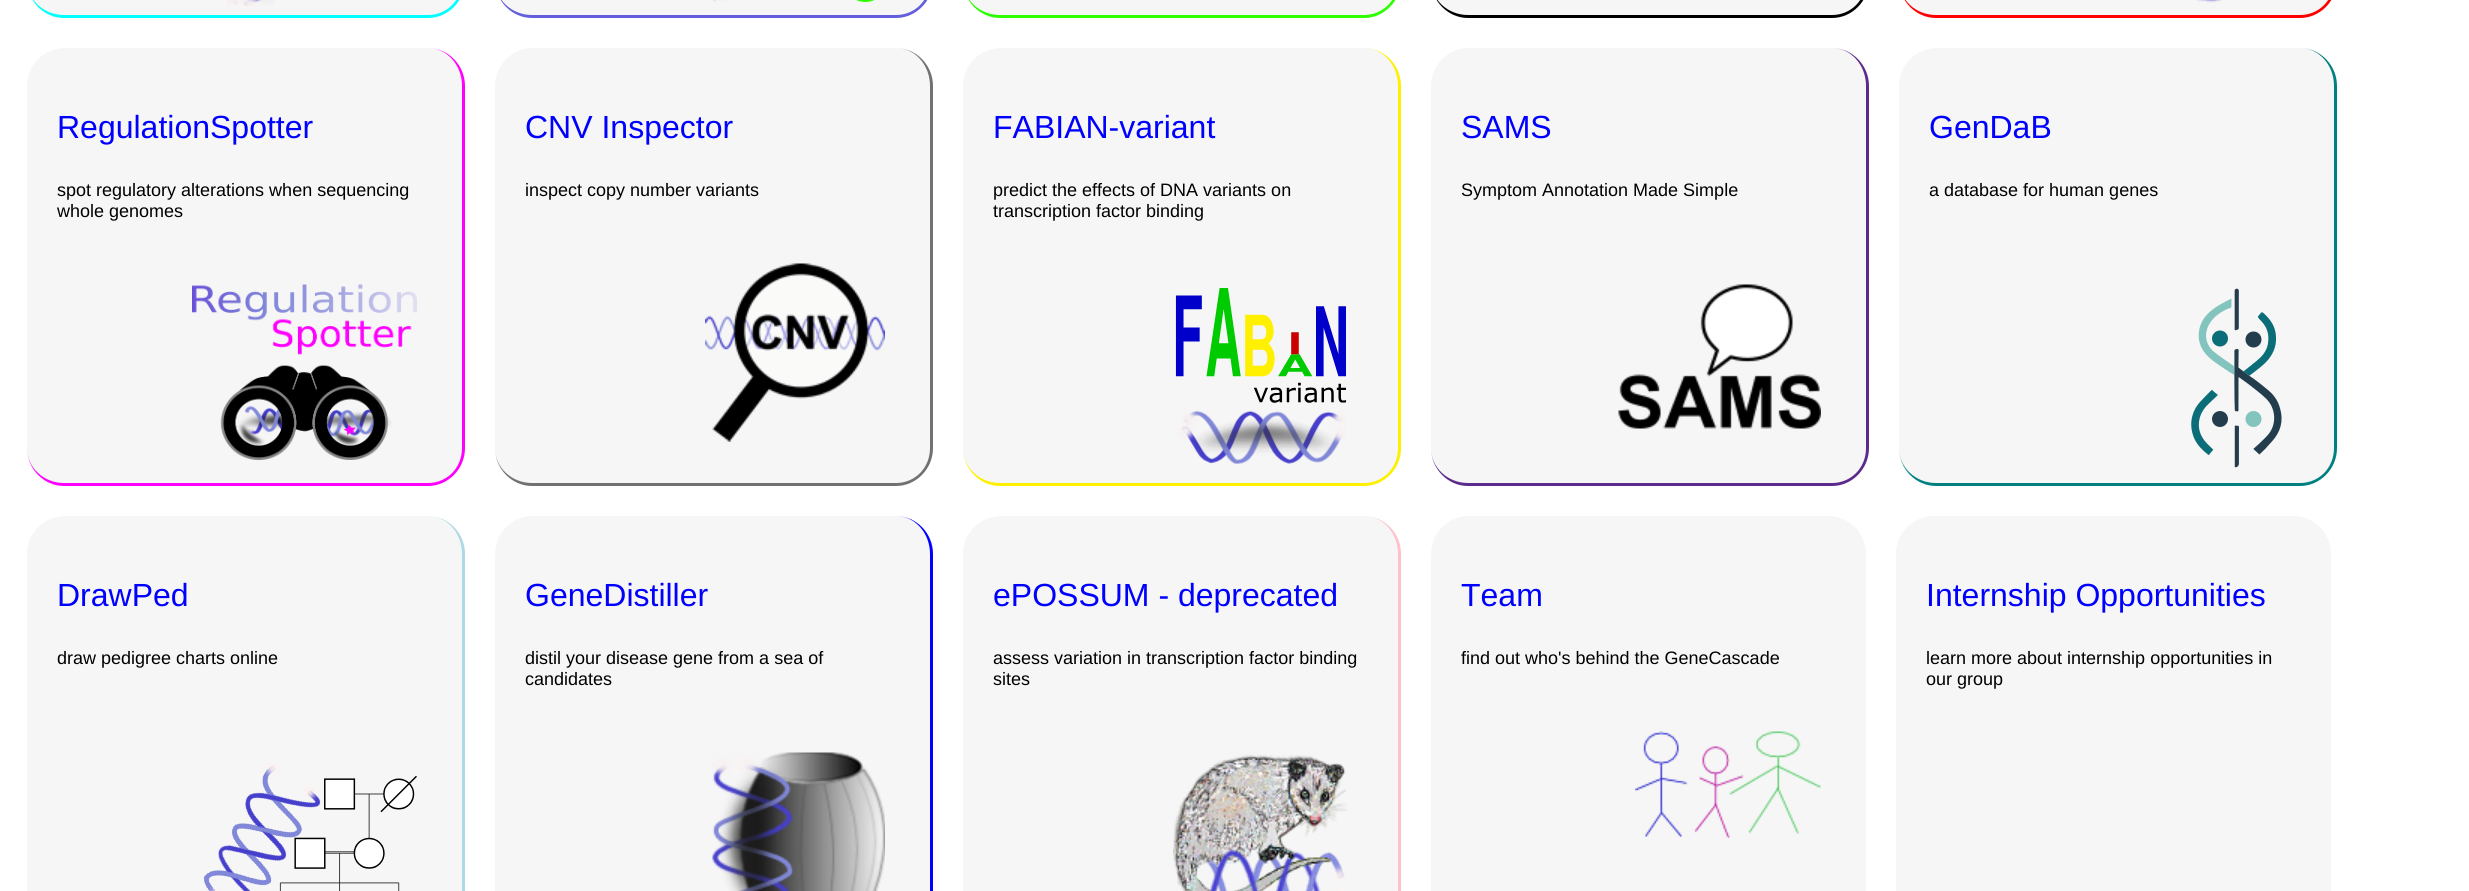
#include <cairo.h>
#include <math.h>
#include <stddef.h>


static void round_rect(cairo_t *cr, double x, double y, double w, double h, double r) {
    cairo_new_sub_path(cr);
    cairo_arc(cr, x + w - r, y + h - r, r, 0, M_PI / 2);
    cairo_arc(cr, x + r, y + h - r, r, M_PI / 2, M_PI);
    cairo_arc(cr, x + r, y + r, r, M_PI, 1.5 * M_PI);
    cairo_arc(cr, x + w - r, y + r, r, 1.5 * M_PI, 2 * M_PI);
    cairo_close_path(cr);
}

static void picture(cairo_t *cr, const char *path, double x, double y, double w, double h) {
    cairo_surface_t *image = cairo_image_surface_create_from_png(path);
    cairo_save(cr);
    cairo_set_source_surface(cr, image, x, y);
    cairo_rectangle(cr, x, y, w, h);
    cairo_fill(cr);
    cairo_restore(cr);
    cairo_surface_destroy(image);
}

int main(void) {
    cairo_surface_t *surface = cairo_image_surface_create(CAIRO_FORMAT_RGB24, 2469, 891);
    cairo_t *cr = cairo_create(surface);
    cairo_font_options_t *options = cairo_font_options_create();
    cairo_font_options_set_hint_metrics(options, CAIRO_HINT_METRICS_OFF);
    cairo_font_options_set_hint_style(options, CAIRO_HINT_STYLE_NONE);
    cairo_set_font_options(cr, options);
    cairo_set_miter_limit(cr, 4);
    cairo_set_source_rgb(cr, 1, 1, 1);
    cairo_paint(cr);
    cairo_set_source_rgb(cr, 0.961, 0.961, 0.961);
    round_rect(cr, 27, -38, 438, 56, 38);
    cairo_fill(cr);
    cairo_set_source_rgb(cr, 0, 1, 1);
    cairo_set_fill_rule(cr, CAIRO_FILL_RULE_EVEN_ODD);
    cairo_new_path(cr);
    cairo_move_to(cr, 64, -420);
    cairo_line_to(cr, 428, -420);
    cairo_curve_to(cr, 448, -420, 465, -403, 465, -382);
    cairo_line_to(cr, 465, -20);
    cairo_curve_to(cr, 465, 1, 448, 18, 428, 18);
    cairo_line_to(cr, 64, 18);
    cairo_curve_to(cr, 44, 18, 27, 1, 27, -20);
    cairo_line_to(cr, 27, -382);
    cairo_curve_to(cr, 27, -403, 44, -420, 64, -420);
    cairo_close_path(cr);
    cairo_move_to(cr, 64, -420);
    cairo_line_to(cr, 428, -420);
    cairo_curve_to(cr, 447, -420, 462, -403, 462, -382);
    cairo_line_to(cr, 462, -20);
    cairo_curve_to(cr, 462, 0, 447, 15, 428, 15);
    cairo_line_to(cr, 64, 15);
    cairo_curve_to(cr, 44, 15, 27, 0, 27, -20);
    cairo_line_to(cr, 27, -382);
    cairo_curve_to(cr, 27, -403, 44, -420, 64, -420);
    cairo_close_path(cr);
    cairo_fill(cr);
    picture(cr, "img1.png", 226, 0, 49, 7);
    cairo_set_source_rgb(cr, 0.961, 0.961, 0.961);
    round_rect(cr, 495, -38, 438, 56, 38);
    cairo_fill(cr);
    cairo_set_source_rgb(cr, 0.388, 0.373, 0.863);
    cairo_new_path(cr);
    cairo_move_to(cr, 532, -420);
    cairo_line_to(cr, 896, -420);
    cairo_curve_to(cr, 916, -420, 933, -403, 933, -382);
    cairo_line_to(cr, 933, -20);
    cairo_curve_to(cr, 933, 1, 916, 18, 896, 18);
    cairo_line_to(cr, 532, 18);
    cairo_curve_to(cr, 512, 18, 495, 1, 495, -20);
    cairo_line_to(cr, 495, -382);
    cairo_curve_to(cr, 495, -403, 512, -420, 532, -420);
    cairo_close_path(cr);
    cairo_move_to(cr, 532, -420);
    cairo_line_to(cr, 896, -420);
    cairo_curve_to(cr, 915, -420, 930, -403, 930, -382);
    cairo_line_to(cr, 930, -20);
    cairo_curve_to(cr, 930, 0, 915, 15, 896, 15);
    cairo_line_to(cr, 532, 15);
    cairo_curve_to(cr, 512, 15, 495, 0, 495, -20);
    cairo_line_to(cr, 495, -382);
    cairo_curve_to(cr, 495, -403, 512, -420, 532, -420);
    cairo_close_path(cr);
    cairo_fill(cr);
    picture(cr, "img2.png", 713, 0, 161, 2);
    cairo_set_source_rgb(cr, 0.961, 0.961, 0.961);
    round_rect(cr, 963, -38, 438, 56, 38);
    cairo_fill(cr);
    cairo_set_source_rgb(cr, 0.176, 1, 0);
    cairo_new_path(cr);
    cairo_move_to(cr, 1000, -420);
    cairo_line_to(cr, 1364, -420);
    cairo_curve_to(cr, 1384, -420, 1401, -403, 1401, -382);
    cairo_line_to(cr, 1401, -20);
    cairo_curve_to(cr, 1401, 1, 1384, 18, 1364, 18);
    cairo_line_to(cr, 1000, 18);
    cairo_curve_to(cr, 980, 18, 963, 1, 963, -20);
    cairo_line_to(cr, 963, -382);
    cairo_curve_to(cr, 963, -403, 980, -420, 1000, -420);
    cairo_close_path(cr);
    cairo_move_to(cr, 1000, -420);
    cairo_line_to(cr, 1364, -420);
    cairo_curve_to(cr, 1383, -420, 1398, -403, 1398, -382);
    cairo_line_to(cr, 1398, -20);
    cairo_curve_to(cr, 1398, 0, 1383, 15, 1364, 15);
    cairo_line_to(cr, 1000, 15);
    cairo_curve_to(cr, 980, 15, 963, 0, 963, -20);
    cairo_line_to(cr, 963, -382);
    cairo_curve_to(cr, 963, -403, 980, -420, 1000, -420);
    cairo_close_path(cr);
    cairo_fill(cr);
    cairo_set_source_rgb(cr, 0.961, 0.961, 0.961);
    round_rect(cr, 1431, -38, 438, 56, 38);
    cairo_fill(cr);
    cairo_set_source_rgb(cr, 0, 0, 0);
    cairo_new_path(cr);
    cairo_move_to(cr, 1468, -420);
    cairo_line_to(cr, 1832, -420);
    cairo_curve_to(cr, 1852, -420, 1869, -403, 1869, -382);
    cairo_line_to(cr, 1869, -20);
    cairo_curve_to(cr, 1869, 1, 1852, 18, 1832, 18);
    cairo_line_to(cr, 1468, 18);
    cairo_curve_to(cr, 1448, 18, 1431, 1, 1431, -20);
    cairo_line_to(cr, 1431, -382);
    cairo_curve_to(cr, 1431, -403, 1448, -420, 1468, -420);
    cairo_close_path(cr);
    cairo_move_to(cr, 1468, -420);
    cairo_line_to(cr, 1832, -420);
    cairo_curve_to(cr, 1851, -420, 1866, -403, 1866, -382);
    cairo_line_to(cr, 1866, -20);
    cairo_curve_to(cr, 1866, 0, 1851, 15, 1832, 15);
    cairo_line_to(cr, 1468, 15);
    cairo_curve_to(cr, 1448, 15, 1431, 0, 1431, -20);
    cairo_line_to(cr, 1431, -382);
    cairo_curve_to(cr, 1431, -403, 1448, -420, 1468, -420);
    cairo_close_path(cr);
    cairo_fill(cr);
    cairo_set_source_rgb(cr, 0.961, 0.961, 0.961);
    round_rect(cr, 1899, -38, 438, 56, 38);
    cairo_fill(cr);
    cairo_set_source_rgb(cr, 1, 0, 0);
    cairo_new_path(cr);
    cairo_move_to(cr, 1936, -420);
    cairo_line_to(cr, 2300, -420);
    cairo_curve_to(cr, 2320, -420, 2337, -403, 2337, -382);
    cairo_line_to(cr, 2337, -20);
    cairo_curve_to(cr, 2337, 1, 2320, 18, 2300, 18);
    cairo_line_to(cr, 1936, 18);
    cairo_curve_to(cr, 1916, 18, 1899, 1, 1899, -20);
    cairo_line_to(cr, 1899, -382);
    cairo_curve_to(cr, 1899, -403, 1916, -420, 1936, -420);
    cairo_close_path(cr);
    cairo_move_to(cr, 1936, -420);
    cairo_line_to(cr, 2300, -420);
    cairo_curve_to(cr, 2319, -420, 2334, -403, 2334, -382);
    cairo_line_to(cr, 2334, -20);
    cairo_curve_to(cr, 2334, 0, 2319, 15, 2300, 15);
    cairo_line_to(cr, 1936, 15);
    cairo_curve_to(cr, 1916, 15, 1899, 0, 1899, -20);
    cairo_line_to(cr, 1899, -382);
    cairo_curve_to(cr, 1899, -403, 1916, -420, 1936, -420);
    cairo_close_path(cr);
    cairo_fill(cr);
    picture(cr, "img3.png", 2196, 0, 26, 3);
    cairo_set_source_rgb(cr, 0.961, 0.961, 0.961);
    round_rect(cr, 27, 48, 438, 438, 38);
    cairo_fill(cr);
    cairo_set_source_rgb(cr, 1, 0, 1);
    cairo_new_path(cr);
    cairo_move_to(cr, 64, 48);
    cairo_line_to(cr, 428, 48);
    cairo_curve_to(cr, 448, 48, 465, 65, 465, 86);
    cairo_line_to(cr, 465, 448);
    cairo_curve_to(cr, 465, 469, 448, 486, 428, 486);
    cairo_line_to(cr, 64, 486);
    cairo_curve_to(cr, 44, 486, 27, 469, 27, 448);
    cairo_line_to(cr, 27, 86);
    cairo_curve_to(cr, 27, 65, 44, 48, 64, 48);
    cairo_close_path(cr);
    cairo_move_to(cr, 64, 48);
    cairo_line_to(cr, 428, 48);
    cairo_curve_to(cr, 447, 48, 462, 65, 462, 86);
    cairo_line_to(cr, 462, 448);
    cairo_curve_to(cr, 462, 468, 447, 483, 428, 483);
    cairo_line_to(cr, 64, 483);
    cairo_curve_to(cr, 44, 483, 27, 468, 27, 448);
    cairo_line_to(cr, 27, 86);
    cairo_curve_to(cr, 27, 65, 44, 48, 64, 48);
    cairo_close_path(cr);
    cairo_fill(cr);
    cairo_select_font_face(cr, "Liberation Sans", CAIRO_FONT_SLANT_NORMAL, CAIRO_FONT_WEIGHT_NORMAL);
    cairo_set_font_size(cr, 32);
    cairo_set_source_rgb(cr, 0, 0, 1);
    cairo_move_to(cr, 57, 138);
    cairo_show_text(cr, "RegulationSpotter");
    cairo_set_font_size(cr, 18);
    cairo_set_source_rgb(cr, 0, 0, 0);
    cairo_move_to(cr, 57, 196);
    cairo_show_text(cr, "spot regulatory alterations when sequencing");
    cairo_move_to(cr, 57, 217);
    cairo_show_text(cr, "whole genomes");
    picture(cr, "img4.png", 192, 284, 225, 176);
    cairo_set_source_rgb(cr, 0.961, 0.961, 0.961);
    round_rect(cr, 495, 48, 438, 438, 38);
    cairo_fill(cr);
    cairo_set_source_rgb(cr, 0.439, 0.443, 0.451);
    cairo_new_path(cr);
    cairo_move_to(cr, 532, 48);
    cairo_line_to(cr, 896, 48);
    cairo_curve_to(cr, 916, 48, 933, 65, 933, 86);
    cairo_line_to(cr, 933, 448);
    cairo_curve_to(cr, 933, 469, 916, 486, 896, 486);
    cairo_line_to(cr, 532, 486);
    cairo_curve_to(cr, 512, 486, 495, 469, 495, 448);
    cairo_line_to(cr, 495, 86);
    cairo_curve_to(cr, 495, 65, 512, 48, 532, 48);
    cairo_close_path(cr);
    cairo_move_to(cr, 532, 48);
    cairo_line_to(cr, 896, 48);
    cairo_curve_to(cr, 915, 48, 930, 65, 930, 86);
    cairo_line_to(cr, 930, 448);
    cairo_curve_to(cr, 930, 468, 915, 483, 896, 483);
    cairo_line_to(cr, 532, 483);
    cairo_curve_to(cr, 512, 483, 495, 468, 495, 448);
    cairo_line_to(cr, 495, 86);
    cairo_curve_to(cr, 495, 65, 512, 48, 532, 48);
    cairo_close_path(cr);
    cairo_fill(cr);
    cairo_set_font_size(cr, 32);
    cairo_set_source_rgb(cr, 0, 0, 1);
    cairo_move_to(cr, 525, 138);
    cairo_show_text(cr, "CNV Inspector");
    cairo_set_font_size(cr, 18);
    cairo_set_source_rgb(cr, 0, 0, 0);
    cairo_move_to(cr, 525, 196);
    cairo_show_text(cr, "inspect copy number variants");
    picture(cr, "img5.png", 705, 263, 180, 179);
    cairo_set_source_rgb(cr, 0.961, 0.961, 0.961);
    round_rect(cr, 963, 48, 438, 438, 38);
    cairo_fill(cr);
    cairo_set_source_rgb(cr, 1, 0.941, 0);
    cairo_new_path(cr);
    cairo_move_to(cr, 1000, 48);
    cairo_line_to(cr, 1364, 48);
    cairo_curve_to(cr, 1384, 48, 1401, 65, 1401, 86);
    cairo_line_to(cr, 1401, 448);
    cairo_curve_to(cr, 1401, 469, 1384, 486, 1364, 486);
    cairo_line_to(cr, 1000, 486);
    cairo_curve_to(cr, 980, 486, 963, 469, 963, 448);
    cairo_line_to(cr, 963, 86);
    cairo_curve_to(cr, 963, 65, 980, 48, 1000, 48);
    cairo_close_path(cr);
    cairo_move_to(cr, 1000, 48);
    cairo_line_to(cr, 1364, 48);
    cairo_curve_to(cr, 1383, 48, 1398, 65, 1398, 86);
    cairo_line_to(cr, 1398, 448);
    cairo_curve_to(cr, 1398, 468, 1383, 483, 1364, 483);
    cairo_line_to(cr, 1000, 483);
    cairo_curve_to(cr, 980, 483, 963, 468, 963, 448);
    cairo_line_to(cr, 963, 86);
    cairo_curve_to(cr, 963, 65, 980, 48, 1000, 48);
    cairo_close_path(cr);
    cairo_fill(cr);
    cairo_set_font_size(cr, 32);
    cairo_set_source_rgb(cr, 0, 0, 1);
    cairo_move_to(cr, 993, 138);
    cairo_show_text(cr, "FABIAN-variant");
    cairo_set_font_size(cr, 18);
    cairo_set_source_rgb(cr, 0, 0, 0);
    cairo_move_to(cr, 993, 196);
    cairo_show_text(cr, "predict the effects of DNA variants on");
    cairo_move_to(cr, 993, 217);
    cairo_show_text(cr, "transcription factor binding");
    picture(cr, "img6.png", 1175, 288, 171, 176);
    cairo_set_source_rgb(cr, 0.961, 0.961, 0.961);
    round_rect(cr, 1431, 48, 438, 438, 38);
    cairo_fill(cr);
    cairo_set_source_rgb(cr, 0.357, 0.165, 0.549);
    cairo_new_path(cr);
    cairo_move_to(cr, 1468, 48);
    cairo_line_to(cr, 1832, 48);
    cairo_curve_to(cr, 1852, 48, 1869, 65, 1869, 86);
    cairo_line_to(cr, 1869, 448);
    cairo_curve_to(cr, 1869, 469, 1852, 486, 1832, 486);
    cairo_line_to(cr, 1468, 486);
    cairo_curve_to(cr, 1448, 486, 1431, 469, 1431, 448);
    cairo_line_to(cr, 1431, 86);
    cairo_curve_to(cr, 1431, 65, 1448, 48, 1468, 48);
    cairo_close_path(cr);
    cairo_move_to(cr, 1468, 48);
    cairo_line_to(cr, 1832, 48);
    cairo_curve_to(cr, 1851, 48, 1866, 65, 1866, 86);
    cairo_line_to(cr, 1866, 448);
    cairo_curve_to(cr, 1866, 468, 1851, 483, 1832, 483);
    cairo_line_to(cr, 1468, 483);
    cairo_curve_to(cr, 1448, 483, 1431, 468, 1431, 448);
    cairo_line_to(cr, 1431, 86);
    cairo_curve_to(cr, 1431, 65, 1448, 48, 1468, 48);
    cairo_close_path(cr);
    cairo_fill(cr);
    cairo_set_font_size(cr, 32);
    cairo_set_source_rgb(cr, 0, 0, 1);
    cairo_move_to(cr, 1461, 138);
    cairo_show_text(cr, "SAMS");
    cairo_set_font_size(cr, 18);
    cairo_set_source_rgb(cr, 0, 0, 0);
    cairo_move_to(cr, 1461, 196);
    cairo_show_text(cr, "Symptom Annotation Made Simple");
    picture(cr, "img7.png", 1618, 284, 203, 145);
    cairo_set_source_rgb(cr, 0.961, 0.961, 0.961);
    round_rect(cr, 1899, 48, 438, 438, 38);
    cairo_fill(cr);
    cairo_set_source_rgb(cr, 0, 0.502, 0.502);
    cairo_new_path(cr);
    cairo_move_to(cr, 1936, 48);
    cairo_line_to(cr, 2300, 48);
    cairo_curve_to(cr, 2320, 48, 2337, 65, 2337, 86);
    cairo_line_to(cr, 2337, 448);
    cairo_curve_to(cr, 2337, 469, 2320, 486, 2300, 486);
    cairo_line_to(cr, 1936, 486);
    cairo_curve_to(cr, 1916, 486, 1899, 469, 1899, 448);
    cairo_line_to(cr, 1899, 86);
    cairo_curve_to(cr, 1899, 65, 1916, 48, 1936, 48);
    cairo_close_path(cr);
    cairo_move_to(cr, 1936, 48);
    cairo_line_to(cr, 2300, 48);
    cairo_curve_to(cr, 2319, 48, 2334, 65, 2334, 86);
    cairo_line_to(cr, 2334, 448);
    cairo_curve_to(cr, 2334, 468, 2319, 483, 2300, 483);
    cairo_line_to(cr, 1936, 483);
    cairo_curve_to(cr, 1916, 483, 1899, 468, 1899, 448);
    cairo_line_to(cr, 1899, 86);
    cairo_curve_to(cr, 1899, 65, 1916, 48, 1936, 48);
    cairo_close_path(cr);
    cairo_fill(cr);
    cairo_set_font_size(cr, 32);
    cairo_set_source_rgb(cr, 0, 0, 1);
    cairo_move_to(cr, 1929, 138);
    cairo_show_text(cr, "GenDaB");
    cairo_set_font_size(cr, 18);
    cairo_set_source_rgb(cr, 0, 0, 0);
    cairo_move_to(cr, 1929, 196);
    cairo_show_text(cr, "a database for human genes");
    picture(cr, "img8.png", 2191, 288, 91, 180);
    cairo_set_source_rgb(cr, 0.961, 0.961, 0.961);
    round_rect(cr, 27, 516, 438, 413, 38);
    cairo_fill(cr);
    cairo_set_source_rgb(cr, 0.678, 0.847, 0.902);
    cairo_new_path(cr);
    cairo_move_to(cr, 64, 516);
    cairo_line_to(cr, 428, 516);
    cairo_curve_to(cr, 448, 516, 465, 533, 465, 554);
    cairo_line_to(cr, 465, 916);
    cairo_curve_to(cr, 465, 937, 448, 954, 428, 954);
    cairo_line_to(cr, 64, 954);
    cairo_curve_to(cr, 44, 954, 27, 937, 27, 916);
    cairo_line_to(cr, 27, 554);
    cairo_curve_to(cr, 27, 533, 44, 516, 64, 516);
    cairo_close_path(cr);
    cairo_move_to(cr, 64, 516);
    cairo_line_to(cr, 428, 516);
    cairo_curve_to(cr, 447, 516, 462, 533, 462, 554);
    cairo_line_to(cr, 462, 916);
    cairo_curve_to(cr, 462, 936, 447, 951, 428, 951);
    cairo_line_to(cr, 64, 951);
    cairo_curve_to(cr, 44, 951, 27, 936, 27, 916);
    cairo_line_to(cr, 27, 554);
    cairo_curve_to(cr, 27, 533, 44, 516, 64, 516);
    cairo_close_path(cr);
    cairo_fill(cr);
    cairo_set_font_size(cr, 32);
    cairo_set_source_rgb(cr, 0, 0, 1);
    cairo_move_to(cr, 57, 606);
    cairo_show_text(cr, "DrawPed");
    cairo_set_font_size(cr, 18);
    cairo_set_source_rgb(cr, 0, 0, 0);
    cairo_move_to(cr, 57, 664);
    cairo_show_text(cr, "draw pedigree charts online");
    picture(cr, "img9.png", 203, 764, 214, 127);
    cairo_set_source_rgb(cr, 0.961, 0.961, 0.961);
    round_rect(cr, 495, 516, 438, 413, 38);
    cairo_fill(cr);
    cairo_set_source_rgb(cr, 0, 0, 1);
    cairo_new_path(cr);
    cairo_move_to(cr, 532, 516);
    cairo_line_to(cr, 896, 516);
    cairo_curve_to(cr, 916, 516, 933, 533, 933, 554);
    cairo_line_to(cr, 933, 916);
    cairo_curve_to(cr, 933, 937, 916, 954, 896, 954);
    cairo_line_to(cr, 532, 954);
    cairo_curve_to(cr, 512, 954, 495, 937, 495, 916);
    cairo_line_to(cr, 495, 554);
    cairo_curve_to(cr, 495, 533, 512, 516, 532, 516);
    cairo_close_path(cr);
    cairo_move_to(cr, 532, 516);
    cairo_line_to(cr, 896, 516);
    cairo_curve_to(cr, 915, 516, 930, 533, 930, 554);
    cairo_line_to(cr, 930, 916);
    cairo_curve_to(cr, 930, 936, 915, 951, 896, 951);
    cairo_line_to(cr, 532, 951);
    cairo_curve_to(cr, 512, 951, 495, 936, 495, 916);
    cairo_line_to(cr, 495, 554);
    cairo_curve_to(cr, 495, 533, 512, 516, 532, 516);
    cairo_close_path(cr);
    cairo_fill(cr);
    cairo_set_font_size(cr, 32);
    cairo_move_to(cr, 525, 606);
    cairo_show_text(cr, "GeneDistiller");
    cairo_set_font_size(cr, 18);
    cairo_set_source_rgb(cr, 0, 0, 0);
    cairo_move_to(cr, 525, 664);
    cairo_show_text(cr, "distil your disease gene from a sea of");
    cairo_move_to(cr, 525, 685);
    cairo_show_text(cr, "candidates");
    picture(cr, "img10.png", 712, 752, 173, 139);
    cairo_set_source_rgb(cr, 0.961, 0.961, 0.961);
    round_rect(cr, 963, 516, 438, 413, 38);
    cairo_fill(cr);
    cairo_set_source_rgb(cr, 1, 0.753, 0.796);
    cairo_new_path(cr);
    cairo_move_to(cr, 1000, 516);
    cairo_line_to(cr, 1364, 516);
    cairo_curve_to(cr, 1384, 516, 1401, 533, 1401, 554);
    cairo_line_to(cr, 1401, 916);
    cairo_curve_to(cr, 1401, 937, 1384, 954, 1364, 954);
    cairo_line_to(cr, 1000, 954);
    cairo_curve_to(cr, 980, 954, 963, 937, 963, 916);
    cairo_line_to(cr, 963, 554);
    cairo_curve_to(cr, 963, 533, 980, 516, 1000, 516);
    cairo_close_path(cr);
    cairo_move_to(cr, 1000, 516);
    cairo_line_to(cr, 1364, 516);
    cairo_curve_to(cr, 1383, 516, 1398, 533, 1398, 554);
    cairo_line_to(cr, 1398, 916);
    cairo_curve_to(cr, 1398, 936, 1383, 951, 1364, 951);
    cairo_line_to(cr, 1000, 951);
    cairo_curve_to(cr, 980, 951, 963, 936, 963, 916);
    cairo_line_to(cr, 963, 554);
    cairo_curve_to(cr, 963, 533, 980, 516, 1000, 516);
    cairo_close_path(cr);
    cairo_fill(cr);
    cairo_set_font_size(cr, 32);
    cairo_set_source_rgb(cr, 0, 0, 1);
    cairo_move_to(cr, 993, 606);
    cairo_show_text(cr, "ePOSSUM - deprecated");
    cairo_set_font_size(cr, 18);
    cairo_set_source_rgb(cr, 0, 0, 0);
    cairo_move_to(cr, 993, 664);
    cairo_show_text(cr, "assess variation in transcription factor binding");
    cairo_move_to(cr, 993, 685);
    cairo_show_text(cr, "sites");
    picture(cr, "img11.png", 1173, 754, 174, 137);
    cairo_set_source_rgb(cr, 0.961, 0.961, 0.961);
    round_rect(cr, 1431, 516, 435, 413, 38);
    cairo_fill(cr);
    cairo_set_font_size(cr, 32);
    cairo_set_source_rgb(cr, 0, 0, 1);
    cairo_move_to(cr, 1461, 606);
    cairo_show_text(cr, "Team");
    cairo_set_font_size(cr, 18);
    cairo_set_source_rgb(cr, 0, 0, 0);
    cairo_move_to(cr, 1461, 664);
    cairo_show_text(cr, "find out who's behind the GeneCascade");
    picture(cr, "img12.png", 1635, 731, 186, 107);
    cairo_set_source_rgb(cr, 0.961, 0.961, 0.961);
    round_rect(cr, 1896, 516, 435, 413, 38);
    cairo_fill(cr);
    cairo_set_font_size(cr, 32);
    cairo_set_source_rgb(cr, 0, 0, 1);
    cairo_move_to(cr, 1926, 606);
    cairo_show_text(cr, "Internship Opportunities");
    cairo_set_font_size(cr, 18);
    cairo_set_source_rgb(cr, 0, 0, 0);
    cairo_move_to(cr, 1926, 664);
    cairo_show_text(cr, "learn more about internship opportunities in");
    cairo_move_to(cr, 1926, 685);
    cairo_show_text(cr, "our group");
    cairo_surface_write_to_png(surface, "page.png");
    cairo_font_options_destroy(options);
    cairo_destroy(cr);
    cairo_surface_destroy(surface);
    return 0;
}
